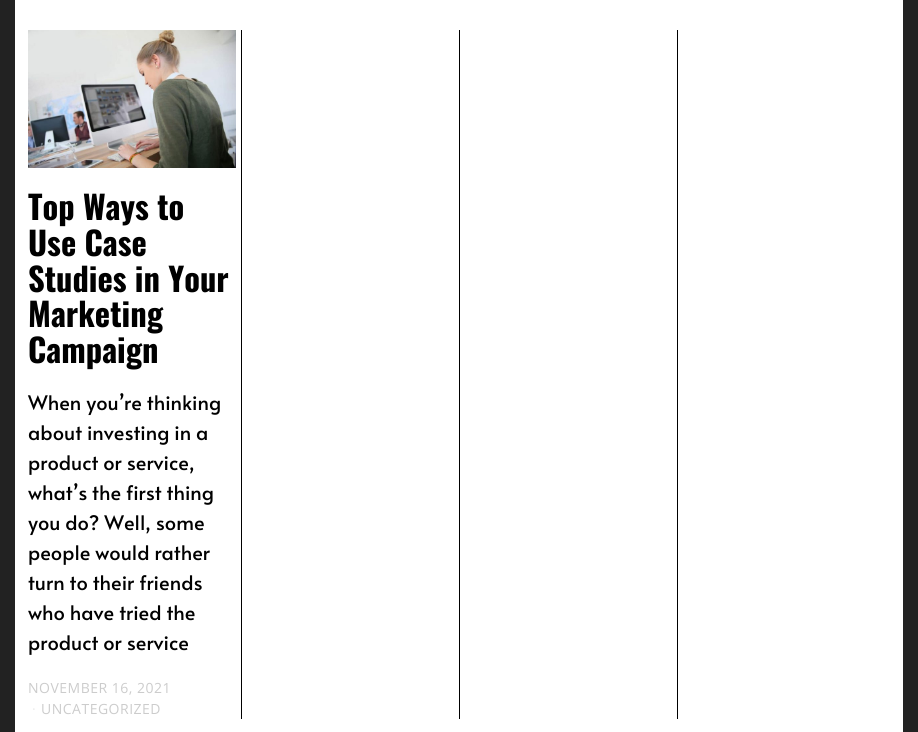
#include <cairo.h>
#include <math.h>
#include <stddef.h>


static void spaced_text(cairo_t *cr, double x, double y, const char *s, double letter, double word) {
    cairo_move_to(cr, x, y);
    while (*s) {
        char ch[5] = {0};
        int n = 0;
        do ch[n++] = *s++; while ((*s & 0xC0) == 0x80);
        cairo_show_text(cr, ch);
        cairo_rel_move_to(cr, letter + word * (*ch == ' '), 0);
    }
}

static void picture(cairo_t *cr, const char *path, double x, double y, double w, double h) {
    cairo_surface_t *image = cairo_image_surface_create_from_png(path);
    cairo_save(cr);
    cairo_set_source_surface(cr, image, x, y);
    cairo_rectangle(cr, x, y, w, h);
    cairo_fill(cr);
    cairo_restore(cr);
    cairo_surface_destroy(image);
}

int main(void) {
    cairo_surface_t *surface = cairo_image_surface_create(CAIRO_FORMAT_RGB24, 918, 732);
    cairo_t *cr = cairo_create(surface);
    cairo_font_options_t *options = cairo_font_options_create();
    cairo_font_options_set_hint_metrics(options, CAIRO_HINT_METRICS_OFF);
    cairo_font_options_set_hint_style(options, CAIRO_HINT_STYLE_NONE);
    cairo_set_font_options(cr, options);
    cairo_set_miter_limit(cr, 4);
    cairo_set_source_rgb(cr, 1, 1, 1);
    cairo_paint(cr);
    cairo_set_source_rgb(cr, 0.133, 0.133, 0.133);
    cairo_rectangle(cr, 903, 0, 15, 732);
    cairo_fill(cr);
    cairo_rectangle(cr, 0, 0, 15, 732);
    cairo_fill(cr);
    picture(cr, "img1.png", 28, 30, 208, 138);
    cairo_select_font_face(cr, "Oswald", CAIRO_FONT_SLANT_NORMAL, CAIRO_FONT_WEIGHT_BOLD);
    cairo_set_font_size(cr, 32.5);
    cairo_set_source_rgb(cr, 0, 0, 0);
    cairo_move_to(cr, 28, 220);
    cairo_show_text(cr, "Top Ways to");
    cairo_move_to(cr, 28, 256);
    cairo_show_text(cr, "Use Case");
    cairo_move_to(cr, 28, 292);
    cairo_show_text(cr, "Studies in Your");
    cairo_move_to(cr, 28, 327);
    cairo_show_text(cr, "Marketing");
    cairo_move_to(cr, 28, 363);
    cairo_show_text(cr, "Campaign");
    cairo_select_font_face(cr, "Alata", CAIRO_FONT_SLANT_NORMAL, CAIRO_FONT_WEIGHT_NORMAL);
    cairo_set_font_size(cr, 20);
    cairo_move_to(cr, 28, 410);
    cairo_show_text(cr, "When you’re thinking");
    cairo_move_to(cr, 28, 440);
    cairo_show_text(cr, "about investing in a");
    cairo_move_to(cr, 28, 470);
    cairo_show_text(cr, "product or service,");
    cairo_move_to(cr, 28, 500);
    cairo_show_text(cr, "what’s the first thing");
    cairo_move_to(cr, 28, 530);
    cairo_show_text(cr, "you do? Well, some");
    cairo_move_to(cr, 28, 560);
    cairo_show_text(cr, "people would rather");
    cairo_move_to(cr, 28, 590);
    cairo_show_text(cr, "turn to their friends");
    cairo_move_to(cr, 28, 620);
    cairo_show_text(cr, "who have tried the");
    cairo_move_to(cr, 28, 650);
    cairo_show_text(cr, "product or service");
    cairo_select_font_face(cr, "Open Sans", CAIRO_FONT_SLANT_NORMAL, CAIRO_FONT_WEIGHT_NORMAL);
    cairo_set_font_size(cr, 14);
    cairo_set_source_rgb(cr, 0.8, 0.8, 0.8);
    spaced_text(cr, 28, 693, "NOVEMBER 16, 2021", 0.5, 0);
    cairo_set_source_rgb(cr, 0.922, 0.922, 0.922);
    spaced_text(cr, 32, 714, "·", 0.5, 0);
    cairo_set_source_rgb(cr, 0.8, 0.8, 0.8);
    spaced_text(cr, 41, 714, "UNCATEGORIZED", 0.5, 0);
    cairo_set_source_rgb(cr, 0, 0, 0);
    cairo_rectangle(cr, 241, 30, 1, 689);
    cairo_fill(cr);
    cairo_rectangle(cr, 459, 30, 1, 689);
    cairo_fill(cr);
    cairo_rectangle(cr, 677, 30, 1, 689);
    cairo_fill(cr);
    cairo_surface_write_to_png(surface, "page.png");
    cairo_font_options_destroy(options);
    cairo_destroy(cr);
    cairo_surface_destroy(surface);
    return 0;
}
